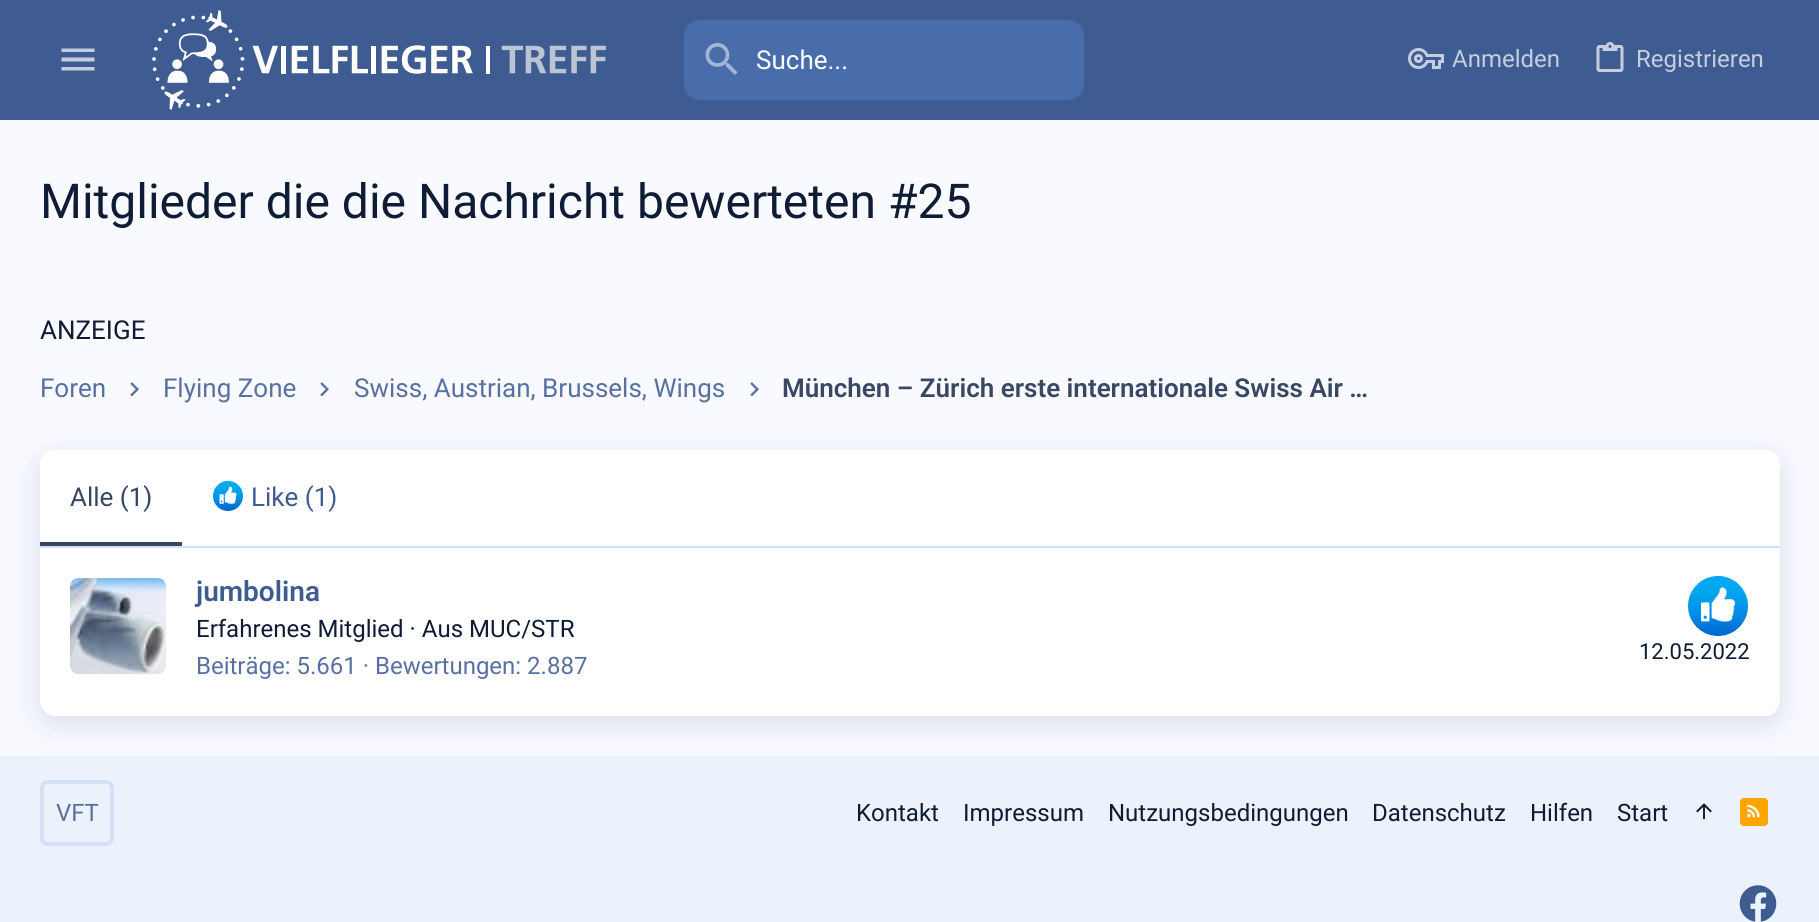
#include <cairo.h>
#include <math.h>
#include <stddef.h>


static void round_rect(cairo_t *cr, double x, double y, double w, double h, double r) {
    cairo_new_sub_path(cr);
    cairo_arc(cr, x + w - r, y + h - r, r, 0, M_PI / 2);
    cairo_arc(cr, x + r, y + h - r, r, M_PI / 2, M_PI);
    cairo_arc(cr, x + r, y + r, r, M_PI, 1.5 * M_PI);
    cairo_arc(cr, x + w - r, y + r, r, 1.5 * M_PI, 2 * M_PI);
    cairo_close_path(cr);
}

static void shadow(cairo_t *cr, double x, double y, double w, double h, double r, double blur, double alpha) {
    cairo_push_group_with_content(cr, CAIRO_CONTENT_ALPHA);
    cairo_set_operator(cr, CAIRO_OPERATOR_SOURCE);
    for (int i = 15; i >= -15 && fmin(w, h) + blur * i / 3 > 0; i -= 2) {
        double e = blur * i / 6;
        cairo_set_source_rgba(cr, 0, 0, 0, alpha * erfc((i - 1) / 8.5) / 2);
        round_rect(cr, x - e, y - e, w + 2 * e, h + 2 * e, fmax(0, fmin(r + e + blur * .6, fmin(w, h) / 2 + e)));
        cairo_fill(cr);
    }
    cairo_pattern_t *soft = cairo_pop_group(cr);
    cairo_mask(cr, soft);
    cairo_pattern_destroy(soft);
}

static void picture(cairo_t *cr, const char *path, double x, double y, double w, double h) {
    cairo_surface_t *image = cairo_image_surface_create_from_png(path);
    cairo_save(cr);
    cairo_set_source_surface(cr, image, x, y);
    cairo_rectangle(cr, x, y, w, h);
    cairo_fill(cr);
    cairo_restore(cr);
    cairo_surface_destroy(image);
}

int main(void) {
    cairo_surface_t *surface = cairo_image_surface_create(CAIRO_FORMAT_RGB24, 1819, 922);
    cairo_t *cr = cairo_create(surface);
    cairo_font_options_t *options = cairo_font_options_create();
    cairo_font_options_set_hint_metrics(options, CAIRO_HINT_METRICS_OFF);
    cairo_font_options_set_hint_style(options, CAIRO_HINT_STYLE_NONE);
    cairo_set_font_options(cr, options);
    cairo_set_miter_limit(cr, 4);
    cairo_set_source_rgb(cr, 0.973, 0.98, 1);
    cairo_paint(cr);
    cairo_set_source_rgb(cr, 0.243, 0.361, 0.573);
    cairo_rectangle(cr, 0, 0, 1819, 120);
    cairo_fill(cr);
    cairo_set_source_rgb(cr, 0.773, 0.808, 0.871);
    cairo_new_path(cr);
    cairo_move_to(cr, 61.5, 48.5);
    cairo_line_to(cr, 94.5, 48.5);
    cairo_line_to(cr, 94.5, 52);
    cairo_line_to(cr, 61.5, 52);
    cairo_close_path(cr);
    cairo_move_to(cr, 61.5, 57.5);
    cairo_line_to(cr, 94.5, 57.5);
    cairo_line_to(cr, 94.5, 61.5);
    cairo_line_to(cr, 61.5, 61.5);
    cairo_close_path(cr);
    cairo_move_to(cr, 61.5, 67);
    cairo_line_to(cr, 94.5, 67);
    cairo_line_to(cr, 94.5, 70.5);
    cairo_line_to(cr, 61.5, 70.5);
    cairo_close_path(cr);
    cairo_fill(cr);
    picture(cr, "img1.png", 152, 10, 454, 100);
    cairo_set_source_rgb(cr, 0.286, 0.424, 0.671);
    round_rect(cr, 684, 20, 400, 80, 16);
    cairo_fill(cr);
    picture(cr, "img2.png", 705, 43, 33, 32);
    cairo_select_font_face(cr, "Roboto", CAIRO_FONT_SLANT_NORMAL, CAIRO_FONT_WEIGHT_NORMAL);
    cairo_set_font_size(cr, 26);
    cairo_set_source_rgb(cr, 1, 1, 1);
    cairo_move_to(cr, 756, 69);
    cairo_show_text(cr, "Suche...");
    picture(cr, "img3.png", 1408, 48, 36, 21);
    cairo_set_font_size(cr, 24);
    cairo_set_source_rgb(cr, 0.773, 0.808, 0.871);
    cairo_move_to(cr, 1452, 67);
    cairo_show_text(cr, "Anmelden");
    picture(cr, "img4.png", 1596, 42, 28, 30);
    cairo_move_to(cr, 1636, 67);
    cairo_show_text(cr, "Registrieren");
    cairo_set_font_size(cr, 48);
    cairo_set_source_rgb(cr, 0.059, 0.11, 0.208);
    cairo_move_to(cr, 40, 218);
    cairo_show_text(cr, "Mitglieder die die Nachricht bewerteten #25");
    cairo_set_font_size(cr, 26);
    cairo_move_to(cr, 40, 339);
    cairo_show_text(cr, "ANZEIGE");
    cairo_set_source_rgb(cr, 0.349, 0.443, 0.635);
    cairo_move_to(cr, 40, 397);
    cairo_show_text(cr, "Foren");
    picture(cr, "img5.png", 130, 382, 9, 15);
    cairo_move_to(cr, 163, 397);
    cairo_show_text(cr, "Flying Zone");
    picture(cr, "img5.png", 320, 382, 9, 15);
    cairo_move_to(cr, 354, 397);
    cairo_show_text(cr, "Swiss, Austrian, Brussels, Wings");
    picture(cr, "img5.png", 750, 382, 9, 15);
    cairo_select_font_face(cr, "Roboto SemiBold", CAIRO_FONT_SLANT_NORMAL, CAIRO_FONT_WEIGHT_NORMAL);
    cairo_set_source_rgb(cr, 0.22, 0.278, 0.392);
    cairo_move_to(cr, 782, 397);
    cairo_show_text(cr, "München – Zürich erste internationale Swiss Air …");
    cairo_set_source_rgb(cr, 0.925, 0.949, 0.984);
    cairo_rectangle(cr, 0, 756, 1819, 166);
    cairo_fill(cr);
    cairo_set_source_rgb(cr, 0.345, 0.416, 0.6);
    shadow(cr, 40, 458, 1740, 266, 16, 15, 0.2);
    cairo_set_source_rgb(cr, 1, 1, 1);
    round_rect(cr, 40, 450, 1740, 266, 16);
    cairo_fill(cr);
    cairo_new_path(cr);
    cairo_move_to(cr, 54, 450);
    cairo_line_to(cr, 1766, 450);
    cairo_curve_to(cr, 1773.5, 450, 1780, 456.5, 1780, 464);
    cairo_line_to(cr, 1780, 548);
    cairo_line_to(cr, 40, 548);
    cairo_line_to(cr, 40, 464);
    cairo_curve_to(cr, 40, 456.5, 46.5, 450, 54, 450);
    cairo_close_path(cr);
    cairo_fill(cr);
    cairo_set_source_rgb(cr, 0.827, 0.882, 0.965);
    cairo_rectangle(cr, 40, 546, 1740, 2);
    cairo_fill(cr);
    cairo_set_source_rgb(cr, 0.22, 0.278, 0.392);
    cairo_rectangle(cr, 40, 542, 142, 4);
    cairo_fill(cr);
    cairo_select_font_face(cr, "Roboto", CAIRO_FONT_SLANT_NORMAL, CAIRO_FONT_WEIGHT_NORMAL);
    cairo_move_to(cr, 70, 506);
    cairo_show_text(cr, "Alle (1)");
    picture(cr, "img6.png", 213, 481, 30, 30);
    cairo_set_source_rgb(cr, 0.243, 0.361, 0.573);
    cairo_move_to(cr, 251, 506);
    cairo_show_text(cr, "Like (1)");
    picture(cr, "img7.png", 70, 578, 96, 96);
    cairo_select_font_face(cr, "Roboto SemiBold", CAIRO_FONT_SLANT_NORMAL, CAIRO_FONT_WEIGHT_NORMAL);
    cairo_set_font_size(cr, 28);
    cairo_move_to(cr, 196, 601);
    cairo_show_text(cr, "jumbolina");
    cairo_select_font_face(cr, "Roboto", CAIRO_FONT_SLANT_NORMAL, CAIRO_FONT_WEIGHT_NORMAL);
    cairo_set_font_size(cr, 24);
    cairo_set_source_rgb(cr, 0.059, 0.11, 0.208);
    cairo_move_to(cr, 196, 637);
    cairo_show_text(cr, "Erfahrenes Mitglied · Aus MUC/STR");
    picture(cr, "img8.png", 1687, 575, 62, 62);
    cairo_set_font_size(cr, 22);
    cairo_move_to(cr, 1639, 659);
    cairo_show_text(cr, "12.05.2022");
    cairo_set_font_size(cr, 24);
    cairo_set_source_rgb(cr, 0.349, 0.443, 0.635);
    cairo_move_to(cr, 196, 674);
    cairo_show_text(cr, "Beiträge: 5.661 · Bewertungen: 2.887");
    round_rect(cr, 42, 782, 70, 62, 6);
    cairo_set_source_rgb(cr, 0.827, 0.882, 0.965);
    cairo_set_line_width(cr, 4);
    cairo_stroke(cr);
    cairo_set_source_rgb(cr, 0.349, 0.443, 0.635);
    cairo_move_to(cr, 56, 821);
    cairo_show_text(cr, "VFT");
    cairo_set_source_rgb(cr, 0.059, 0.11, 0.208);
    cairo_move_to(cr, 856, 821);
    cairo_show_text(cr, "Kontakt");
    cairo_move_to(cr, 963, 821);
    cairo_show_text(cr, "Impressum");
    cairo_move_to(cr, 1108, 821);
    cairo_show_text(cr, "Nutzungsbedingungen");
    cairo_move_to(cr, 1372, 821);
    cairo_show_text(cr, "Datenschutz");
    cairo_move_to(cr, 1530, 821);
    cairo_show_text(cr, "Hilfen");
    cairo_move_to(cr, 1617, 821);
    cairo_show_text(cr, "Start");
    picture(cr, "img9.png", 1696, 803, 16, 16);
    cairo_set_source_rgb(cr, 1, 0.647, 0);
    round_rect(cr, 1740, 798, 28, 28, 4);
    cairo_fill(cr);
    picture(cr, "img10.png", 1747, 804, 13, 14);
    picture(cr, "img11.png", 1739, 885, 38, 37);
    cairo_surface_write_to_png(surface, "page.png");
    cairo_font_options_destroy(options);
    cairo_destroy(cr);
    cairo_surface_destroy(surface);
    return 0;
}
